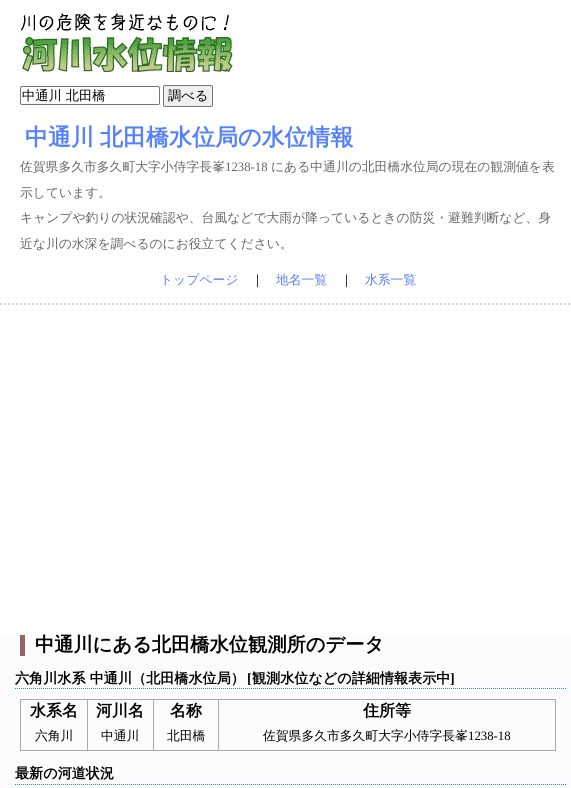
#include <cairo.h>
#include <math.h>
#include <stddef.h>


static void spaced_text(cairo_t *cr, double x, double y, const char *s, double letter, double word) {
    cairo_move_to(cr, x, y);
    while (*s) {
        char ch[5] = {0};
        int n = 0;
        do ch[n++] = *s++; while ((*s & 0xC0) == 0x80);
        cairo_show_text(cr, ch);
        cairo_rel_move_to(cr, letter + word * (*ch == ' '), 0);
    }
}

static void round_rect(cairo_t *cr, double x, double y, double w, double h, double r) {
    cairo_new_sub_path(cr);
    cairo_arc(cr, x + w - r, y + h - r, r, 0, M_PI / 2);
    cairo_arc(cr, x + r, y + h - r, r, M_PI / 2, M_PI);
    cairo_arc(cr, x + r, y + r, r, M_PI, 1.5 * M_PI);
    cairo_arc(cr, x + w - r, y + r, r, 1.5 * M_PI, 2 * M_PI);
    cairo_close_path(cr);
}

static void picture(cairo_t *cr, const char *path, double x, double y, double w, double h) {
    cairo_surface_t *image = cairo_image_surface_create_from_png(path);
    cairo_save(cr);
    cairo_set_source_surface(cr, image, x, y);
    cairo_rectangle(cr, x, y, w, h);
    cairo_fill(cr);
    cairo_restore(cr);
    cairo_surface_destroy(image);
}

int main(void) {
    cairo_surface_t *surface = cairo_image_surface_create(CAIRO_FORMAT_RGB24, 571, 788);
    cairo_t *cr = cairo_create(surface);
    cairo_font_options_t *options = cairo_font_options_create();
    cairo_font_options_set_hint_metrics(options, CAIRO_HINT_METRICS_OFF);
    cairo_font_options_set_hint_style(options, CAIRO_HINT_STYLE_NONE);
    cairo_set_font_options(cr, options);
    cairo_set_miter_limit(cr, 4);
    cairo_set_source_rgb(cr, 1, 1, 1);
    cairo_paint(cr);
    cairo_new_path(cr);
    cairo_move_to(cr, 0, 304);
    cairo_line_to(cr, 571, 304);
    cairo_set_source_rgb(cr, 0.839, 0.839, 0.839);
    cairo_set_dash(cr, (double[]){2, 2}, 2, 0);
    cairo_stroke(cr);
    picture(cr, "img1.png", 21, 13, 212, 59);
    round_rect(cr, 20.5, 86.5, 139, 18, 1.5);
    cairo_set_source_rgb(cr, 0.463, 0.463, 0.463);
    cairo_set_line_width(cr, 1);
    cairo_set_dash(cr, NULL, 0, 0);
    cairo_stroke(cr);
    cairo_select_font_face(cr, "WenQuanYi Zen Hei Medium", CAIRO_FONT_SLANT_NORMAL, CAIRO_FONT_WEIGHT_NORMAL);
    cairo_set_font_size(cr, 13.25);
    cairo_set_source_rgb(cr, 0, 0, 0);
    cairo_move_to(cr, 22, 100);
    cairo_show_text(cr, "中通川 北田橋");
    cairo_set_source_rgb(cr, 0.937, 0.937, 0.937);
    round_rect(cr, 163.5, 85.5, 49, 21, 1.5);
    cairo_fill_preserve(cr);
    cairo_set_source_rgb(cr, 0.463, 0.463, 0.463);
    cairo_stroke(cr);
    cairo_set_source_rgb(cr, 0, 0, 0);
    cairo_move_to(cr, 168, 100);
    cairo_show_text(cr, "調べる");
    cairo_select_font_face(cr, "WenQuanYi Zen Hei", CAIRO_FONT_SLANT_NORMAL, CAIRO_FONT_WEIGHT_BOLD);
    cairo_set_font_size(cr, 23);
    cairo_set_source_rgb(cr, 0.333, 0.502, 1);
    spaced_text(cr, 25, 145, "中通川 北田橋水位局の水位情報", 0, -1);
    cairo_select_font_face(cr, "WenQuanYi Zen Hei Medium", CAIRO_FONT_SLANT_NORMAL, CAIRO_FONT_WEIGHT_NORMAL);
    cairo_set_font_size(cr, 12.8);
    cairo_set_source_rgb(cr, 0.4, 0.4, 0.4);
    cairo_move_to(cr, 20, 171);
    cairo_show_text(cr, "佐賀県多久市多久町大字小侍字長峯");
    cairo_select_font_face(cr, "Liberation Serif", CAIRO_FONT_SLANT_NORMAL, CAIRO_FONT_WEIGHT_NORMAL);
    cairo_move_to(cr, 225, 171);
    cairo_show_text(cr, "1238-18");
    cairo_select_font_face(cr, "WenQuanYi Zen Hei Medium", CAIRO_FONT_SLANT_NORMAL, CAIRO_FONT_WEIGHT_NORMAL);
    cairo_move_to(cr, 271, 171);
    cairo_show_text(cr, "にある中通川の北田橋水位局の現在の観測値を表");
    cairo_move_to(cr, 20, 197);
    cairo_show_text(cr, "示しています。");
    cairo_move_to(cr, 20, 222);
    cairo_show_text(cr, "キャンプや釣りの状況確認や、台風などで大雨が降っているときの防災・避難判断など、身");
    cairo_move_to(cr, 20, 248);
    cairo_show_text(cr, "近な川の水深を調べるのにお役立てください。");
    cairo_set_source_rgb(cr, 0.333, 0.502, 1);
    cairo_move_to(cr, 160, 284);
    cairo_show_text(cr, "トップページ");
    cairo_set_source_rgb(cr, 0, 0, 0);
    cairo_move_to(cr, 251, 284);
    cairo_show_text(cr, "｜");
    cairo_set_source_rgb(cr, 0.333, 0.502, 1);
    cairo_move_to(cr, 276, 284);
    cairo_show_text(cr, "地名一覧");
    cairo_set_source_rgb(cr, 0, 0, 0);
    cairo_move_to(cr, 340, 284);
    cairo_show_text(cr, "｜");
    cairo_set_source_rgb(cr, 0.333, 0.502, 1);
    cairo_move_to(cr, 365, 284);
    cairo_show_text(cr, "水系一覧");
    cairo_set_source_rgb(cr, 0.988, 0.988, 1);
    cairo_rectangle(cr, 0, 635, 571, 153);
    cairo_fill(cr);
    cairo_set_source_rgb(cr, 0.576, 0.388, 0.4);
    cairo_rectangle(cr, 20, 635, 5, 21);
    cairo_fill(cr);
    cairo_select_font_face(cr, "WenQuanYi Zen Hei", CAIRO_FONT_SLANT_NORMAL, CAIRO_FONT_WEIGHT_BOLD);
    cairo_set_font_size(cr, 19.25);
    cairo_set_source_rgb(cr, 0, 0, 0);
    cairo_move_to(cr, 35, 651);
    cairo_show_text(cr, "中通川にある北田橋水位観測所のデータ");
    cairo_new_path(cr);
    cairo_move_to(cr, 15, 688.5);
    cairo_line_to(cr, 566, 688.5);
    cairo_set_source_rgb(cr, 0.067, 0.576, 0.682);
    cairo_set_dash(cr, (double[]){1, 1}, 2, 0);
    cairo_stroke(cr);
    cairo_set_font_size(cr, 14.1);
    cairo_set_source_rgb(cr, 0, 0, 0);
    cairo_move_to(cr, 15, 683);
    cairo_show_text(cr, "六角川水系 中通川（北田橋水位局）");
    cairo_select_font_face(cr, "Liberation Serif", CAIRO_FONT_SLANT_NORMAL, CAIRO_FONT_WEIGHT_BOLD);
    cairo_move_to(cr, 247, 683);
    cairo_show_text(cr, "[");
    cairo_select_font_face(cr, "WenQuanYi Zen Hei", CAIRO_FONT_SLANT_NORMAL, CAIRO_FONT_WEIGHT_BOLD);
    cairo_move_to(cr, 252, 683);
    cairo_show_text(cr, "観測水位などの詳細情報表示中");
    cairo_select_font_face(cr, "Liberation Serif", CAIRO_FONT_SLANT_NORMAL, CAIRO_FONT_WEIGHT_BOLD);
    cairo_move_to(cr, 450, 683);
    cairo_show_text(cr, "]");
    cairo_set_source_rgb(cr, 0.667, 0.667, 0.667);
    cairo_rectangle(cr, 20, 699, 536, 1);
    cairo_fill(cr);
    cairo_rectangle(cr, 555, 699, 1, 52);
    cairo_fill(cr);
    cairo_rectangle(cr, 20, 750, 536, 1);
    cairo_fill(cr);
    cairo_rectangle(cr, 20, 699, 1, 52);
    cairo_fill(cr);
    cairo_select_font_face(cr, "WenQuanYi Zen Hei", CAIRO_FONT_SLANT_NORMAL, CAIRO_FONT_WEIGHT_BOLD);
    cairo_set_font_size(cr, 16);
    cairo_set_source_rgb(cr, 0, 0, 0);
    cairo_move_to(cr, 30, 716);
    cairo_show_text(cr, "水系名");
    cairo_move_to(cr, 96, 716);
    cairo_show_text(cr, "河川名");
    cairo_move_to(cr, 170, 716);
    cairo_show_text(cr, "名称");
    cairo_move_to(cr, 363, 716);
    cairo_show_text(cr, "住所等");
    cairo_select_font_face(cr, "WenQuanYi Zen Hei Medium", CAIRO_FONT_SLANT_NORMAL, CAIRO_FONT_WEIGHT_NORMAL);
    cairo_set_font_size(cr, 12.8);
    cairo_move_to(cr, 35, 740);
    cairo_show_text(cr, "六角川");
    cairo_set_source_rgb(cr, 0.667, 0.667, 0.667);
    cairo_rectangle(cr, 87, 699, 1, 52);
    cairo_fill(cr);
    cairo_set_source_rgb(cr, 0, 0, 0);
    cairo_move_to(cr, 101, 740);
    cairo_show_text(cr, "中通川");
    cairo_set_source_rgb(cr, 0.667, 0.667, 0.667);
    cairo_rectangle(cr, 153, 699, 1, 52);
    cairo_fill(cr);
    cairo_set_source_rgb(cr, 0, 0, 0);
    cairo_move_to(cr, 167, 740);
    cairo_show_text(cr, "北田橋");
    cairo_set_source_rgb(cr, 0.667, 0.667, 0.667);
    cairo_rectangle(cr, 218, 699, 1, 52);
    cairo_fill(cr);
    cairo_set_source_rgb(cr, 0, 0, 0);
    cairo_move_to(cr, 263, 740);
    cairo_show_text(cr, "佐賀県多久市多久町大字小侍字長峯");
    cairo_select_font_face(cr, "Liberation Serif", CAIRO_FONT_SLANT_NORMAL, CAIRO_FONT_WEIGHT_NORMAL);
    cairo_move_to(cr, 468, 740);
    cairo_show_text(cr, "1238-18");
    cairo_new_path(cr);
    cairo_move_to(cr, 15, 784.5);
    cairo_line_to(cr, 566, 784.5);
    cairo_set_source_rgb(cr, 0.067, 0.576, 0.682);
    cairo_stroke(cr);
    cairo_select_font_face(cr, "WenQuanYi Zen Hei", CAIRO_FONT_SLANT_NORMAL, CAIRO_FONT_WEIGHT_BOLD);
    cairo_set_font_size(cr, 14.1);
    cairo_set_source_rgb(cr, 0, 0, 0);
    cairo_move_to(cr, 15, 778);
    cairo_show_text(cr, "最新の河道状況");
    cairo_surface_write_to_png(surface, "page.png");
    cairo_font_options_destroy(options);
    cairo_destroy(cr);
    cairo_surface_destroy(surface);
    return 0;
}
